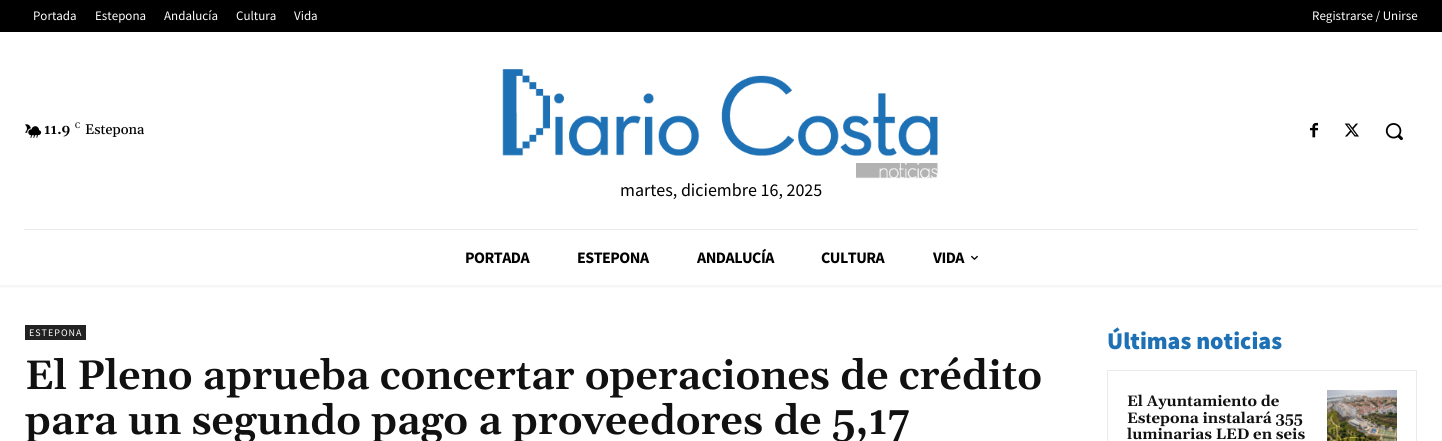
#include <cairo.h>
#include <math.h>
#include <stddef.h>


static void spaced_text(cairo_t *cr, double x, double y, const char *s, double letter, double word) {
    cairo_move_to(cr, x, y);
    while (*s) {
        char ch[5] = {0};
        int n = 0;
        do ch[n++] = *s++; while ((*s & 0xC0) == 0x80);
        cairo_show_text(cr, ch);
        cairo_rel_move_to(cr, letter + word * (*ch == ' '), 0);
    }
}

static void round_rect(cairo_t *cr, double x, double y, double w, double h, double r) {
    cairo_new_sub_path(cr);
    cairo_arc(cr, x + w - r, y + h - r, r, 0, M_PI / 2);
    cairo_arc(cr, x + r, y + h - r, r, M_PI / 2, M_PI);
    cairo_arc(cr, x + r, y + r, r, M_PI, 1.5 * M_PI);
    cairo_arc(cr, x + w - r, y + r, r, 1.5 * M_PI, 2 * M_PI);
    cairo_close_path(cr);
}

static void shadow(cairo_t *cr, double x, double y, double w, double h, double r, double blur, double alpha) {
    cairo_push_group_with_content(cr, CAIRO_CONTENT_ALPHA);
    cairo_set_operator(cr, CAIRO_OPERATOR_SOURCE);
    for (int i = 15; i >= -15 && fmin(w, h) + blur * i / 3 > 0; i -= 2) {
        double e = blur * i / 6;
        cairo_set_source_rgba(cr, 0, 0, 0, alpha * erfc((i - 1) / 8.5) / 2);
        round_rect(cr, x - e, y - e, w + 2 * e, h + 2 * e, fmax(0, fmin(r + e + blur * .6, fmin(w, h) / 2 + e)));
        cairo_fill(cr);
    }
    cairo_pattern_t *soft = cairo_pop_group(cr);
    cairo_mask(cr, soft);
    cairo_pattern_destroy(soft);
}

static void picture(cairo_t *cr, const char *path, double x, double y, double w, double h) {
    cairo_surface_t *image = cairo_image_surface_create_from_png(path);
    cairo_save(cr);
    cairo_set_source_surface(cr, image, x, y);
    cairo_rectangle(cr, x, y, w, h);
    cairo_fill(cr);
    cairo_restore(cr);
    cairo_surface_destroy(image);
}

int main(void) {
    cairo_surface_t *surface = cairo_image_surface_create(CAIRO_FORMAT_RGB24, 1442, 441);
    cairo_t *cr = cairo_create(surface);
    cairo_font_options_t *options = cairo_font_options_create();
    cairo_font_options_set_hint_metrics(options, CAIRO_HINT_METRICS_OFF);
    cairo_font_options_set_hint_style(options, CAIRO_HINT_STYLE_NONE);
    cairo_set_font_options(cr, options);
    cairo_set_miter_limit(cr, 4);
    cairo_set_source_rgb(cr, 1, 1, 1);
    cairo_paint(cr);
    cairo_set_source_rgb(cr, 0, 0, 0);
    cairo_rectangle(cr, 0, 0, 1442, 32);
    cairo_fill(cr);
    cairo_select_font_face(cr, "Source Sans Pro", CAIRO_FONT_SLANT_NORMAL, CAIRO_FONT_WEIGHT_NORMAL);
    cairo_set_font_size(cr, 13);
    cairo_set_source_rgb(cr, 1, 1, 1);
    cairo_move_to(cr, 33, 20);
    cairo_show_text(cr, "Portada");
    cairo_move_to(cr, 95, 20);
    cairo_show_text(cr, "Estepona");
    cairo_move_to(cr, 164, 20);
    cairo_show_text(cr, "Andalucía");
    cairo_move_to(cr, 236, 20);
    cairo_show_text(cr, "Cultura");
    cairo_move_to(cr, 294, 20);
    cairo_show_text(cr, "Vida");
    cairo_move_to(cr, 1312, 20);
    cairo_show_text(cr, "Registrarse / Unirse");
    picture(cr, "img1.png", 25, 124, 17, 14);
    cairo_select_font_face(cr, "Gelasio SemiBold", CAIRO_FONT_SLANT_NORMAL, CAIRO_FONT_WEIGHT_NORMAL);
    cairo_set_font_size(cr, 14);
    cairo_set_source_rgb(cr, 0, 0, 0);
    cairo_move_to(cr, 44, 134);
    cairo_show_text(cr, "11.9");
    cairo_select_font_face(cr, "Gelasio", CAIRO_FONT_SLANT_NORMAL, CAIRO_FONT_WEIGHT_NORMAL);
    cairo_set_font_size(cr, 8);
    cairo_move_to(cr, 75, 128);
    cairo_show_text(cr, "C");
    cairo_select_font_face(cr, "Gelasio Medium", CAIRO_FONT_SLANT_NORMAL, CAIRO_FONT_WEIGHT_NORMAL);
    cairo_set_font_size(cr, 14);
    cairo_move_to(cr, 85, 134);
    cairo_show_text(cr, "Estepona");
    picture(cr, "img2.png", 1310, 122, 8, 16);
    picture(cr, "img3.png", 1344, 123, 15, 14);
    picture(cr, "img4.png", 1385, 123, 18, 18);
    picture(cr, "img5.png", 502, 69, 436, 110);
    cairo_select_font_face(cr, "Source Sans Pro", CAIRO_FONT_SLANT_NORMAL, CAIRO_FONT_WEIGHT_NORMAL);
    cairo_set_font_size(cr, 18);
    cairo_move_to(cr, 620, 196);
    cairo_show_text(cr, "martes, diciembre 16, 2025");
    cairo_set_source_rgb(cr, 0.918, 0.918, 0.918);
    cairo_rectangle(cr, 24, 229, 1394, 1);
    cairo_fill(cr);
    cairo_save(cr);
    cairo_rectangle(cr, 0, 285, 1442, 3);
    cairo_clip(cr);
    cairo_set_source_rgb(cr, 0, 0, 0);
    shadow(cr, 0, 201, 1442, 86, 0, 2, 0.06);
    cairo_restore(cr);
    cairo_select_font_face(cr, "Source Sans Pro", CAIRO_FONT_SLANT_NORMAL, CAIRO_FONT_WEIGHT_BOLD);
    cairo_set_font_size(cr, 16);
    cairo_set_source_rgb(cr, 0, 0, 0);
    spaced_text(cr, 465, 263, "PORTADA", -0.5, 0);
    spaced_text(cr, 577, 263, "ESTEPONA", -0.5, 0);
    spaced_text(cr, 697, 263, "ANDALUCÍA", -0.5, 0);
    spaced_text(cr, 821, 263, "CULTURA", -0.5, 0);
    spaced_text(cr, 933, 263, "VIDA", -0.5, 0);
    picture(cr, "img6.png", 971, 255, 7, 5);
    cairo_set_source_rgb(cr, 0.133, 0.133, 0.133);
    cairo_rectangle(cr, 25, 325, 61, 15);
    cairo_fill(cr);
    cairo_select_font_face(cr, "Source Sans Pro", CAIRO_FONT_SLANT_NORMAL, CAIRO_FONT_WEIGHT_NORMAL);
    cairo_set_font_size(cr, 10);
    cairo_set_source_rgb(cr, 1, 1, 1);
    spaced_text(cr, 29, 336, "ESTEPONA", 1, 0);
    cairo_select_font_face(cr, "Gelasio SemiBold", CAIRO_FONT_SLANT_NORMAL, CAIRO_FONT_WEIGHT_NORMAL);
    cairo_set_font_size(cr, 41);
    cairo_set_source_rgb(cr, 0.067, 0.067, 0.067);
    cairo_move_to(cr, 25, 389);
    cairo_show_text(cr, "El Pleno aprueba concertar operaciones de crédito");
    cairo_move_to(cr, 25, 434);
    cairo_show_text(cr, "para un segundo pago a proveedores de 5,17");
    cairo_select_font_face(cr, "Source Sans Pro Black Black", CAIRO_FONT_SLANT_NORMAL, CAIRO_FONT_WEIGHT_NORMAL);
    cairo_set_font_size(cr, 24);
    cairo_set_source_rgb(cr, 0.118, 0.443, 0.71);
    cairo_move_to(cr, 1107, 349);
    cairo_show_text(cr, "Últimas noticias");
    cairo_rectangle(cr, 1107.5, 370.5, 309, 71);
    cairo_set_source_rgb(cr, 0.918, 0.918, 0.918);
    cairo_set_line_width(cr, 1);
    cairo_stroke(cr);
    cairo_select_font_face(cr, "Gelasio", CAIRO_FONT_SLANT_NORMAL, CAIRO_FONT_WEIGHT_BOLD);
    cairo_set_font_size(cr, 15);
    cairo_set_source_rgb(cr, 0.067, 0.067, 0.067);
    cairo_move_to(cr, 1127, 406);
    cairo_show_text(cr, "El Ayuntamiento de");
    cairo_move_to(cr, 1127, 423);
    cairo_show_text(cr, "Estepona instalará 355");
    cairo_move_to(cr, 1127, 439);
    cairo_show_text(cr, "luminarias LED en seis");
    picture(cr, "img7.png", 1327, 390, 70, 51);
    cairo_surface_write_to_png(surface, "page.png");
    cairo_font_options_destroy(options);
    cairo_destroy(cr);
    cairo_surface_destroy(surface);
    return 0;
}
